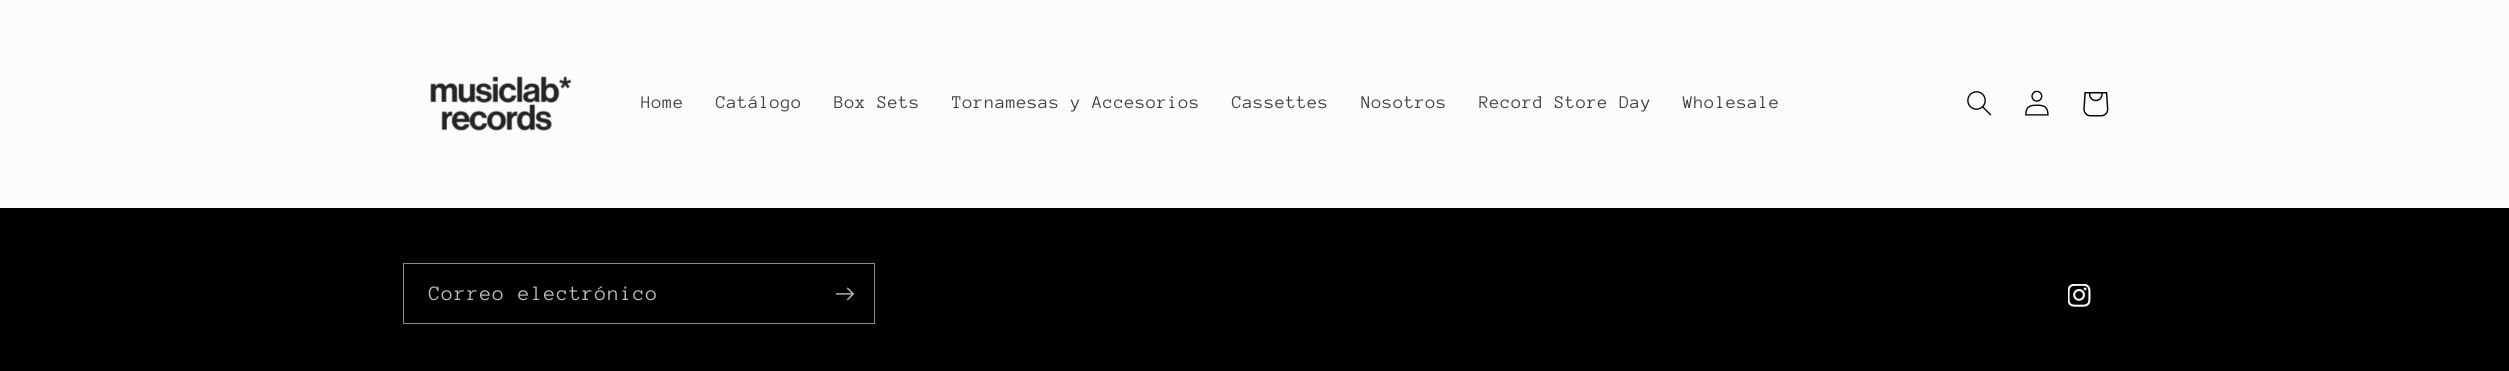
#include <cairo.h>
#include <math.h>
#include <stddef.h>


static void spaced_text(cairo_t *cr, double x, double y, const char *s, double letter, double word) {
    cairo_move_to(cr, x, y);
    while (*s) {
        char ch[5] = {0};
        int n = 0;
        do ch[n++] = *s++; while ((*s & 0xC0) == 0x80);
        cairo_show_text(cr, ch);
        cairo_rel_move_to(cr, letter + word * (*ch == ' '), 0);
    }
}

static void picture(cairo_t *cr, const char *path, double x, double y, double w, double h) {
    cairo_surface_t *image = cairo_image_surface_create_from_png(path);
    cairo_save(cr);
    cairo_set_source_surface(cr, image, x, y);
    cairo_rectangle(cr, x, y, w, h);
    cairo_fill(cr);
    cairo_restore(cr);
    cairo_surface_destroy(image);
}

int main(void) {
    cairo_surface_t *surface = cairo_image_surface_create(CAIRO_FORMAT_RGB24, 2509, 371);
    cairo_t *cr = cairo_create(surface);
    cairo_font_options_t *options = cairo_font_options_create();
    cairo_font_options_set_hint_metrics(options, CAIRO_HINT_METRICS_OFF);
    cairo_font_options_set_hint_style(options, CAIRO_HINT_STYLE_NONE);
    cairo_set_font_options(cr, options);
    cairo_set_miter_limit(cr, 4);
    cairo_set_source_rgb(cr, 0, 0, 0);
    cairo_paint(cr);
    cairo_set_source_rgb(cr, 0.988, 0.988, 0.988);
    cairo_rectangle(cr, 0, 0, 2509, 208);
    cairo_fill(cr);
    picture(cr, "img1.png", 430, 76, 142, 55);
    cairo_select_font_face(cr, "Anonymous Pro", CAIRO_FONT_SLANT_NORMAL, CAIRO_FONT_WEIGHT_NORMAL);
    cairo_set_font_size(cr, 18.4);
    cairo_set_source_rgb(cr, 0.247, 0.247, 0.247);
    spaced_text(cr, 641, 108, "Home", 0.75, 0);
    spaced_text(cr, 716, 108, "Catálogo", 0.75, 0);
    spaced_text(cr, 834, 108, "Box Sets", 0.75, 0);
    spaced_text(cr, 952, 108, "Tornamesas y Accesorios", 0.75, 0);
    spaced_text(cr, 1232, 108, "Cassettes", 0.75, 0);
    spaced_text(cr, 1361, 108, "Nosotros", 0.75, 0);
    spaced_text(cr, 1479, 108, "Record Store Day", 0.75, 0);
    spaced_text(cr, 1683, 108, "Wholesale", 0.75, 0);
    picture(cr, "img2.png", 1967, 91, 25, 25);
    picture(cr, "img3.png", 2025, 90, 24, 26);
    picture(cr, "img4.png", 2083, 92, 26, 25);
    cairo_rectangle(cr, 403.5, 263.5, 471, 60);
    cairo_set_source_rgb(cr, 0.545, 0.545, 0.545);
    cairo_set_line_width(cr, 1);
    cairo_stroke(cr);
    cairo_set_font_size(cr, 21);
    cairo_set_source_rgb(cr, 0.741, 0.741, 0.741);
    spaced_text(cr, 429, 300, "Correo electrónico", 1.3, 0);
    picture(cr, "img5.png", 835, 287, 19, 14);
    picture(cr, "img6.png", 2068, 284, 23, 23);
    cairo_surface_write_to_png(surface, "page.png");
    cairo_font_options_destroy(options);
    cairo_destroy(cr);
    cairo_surface_destroy(surface);
    return 0;
}
